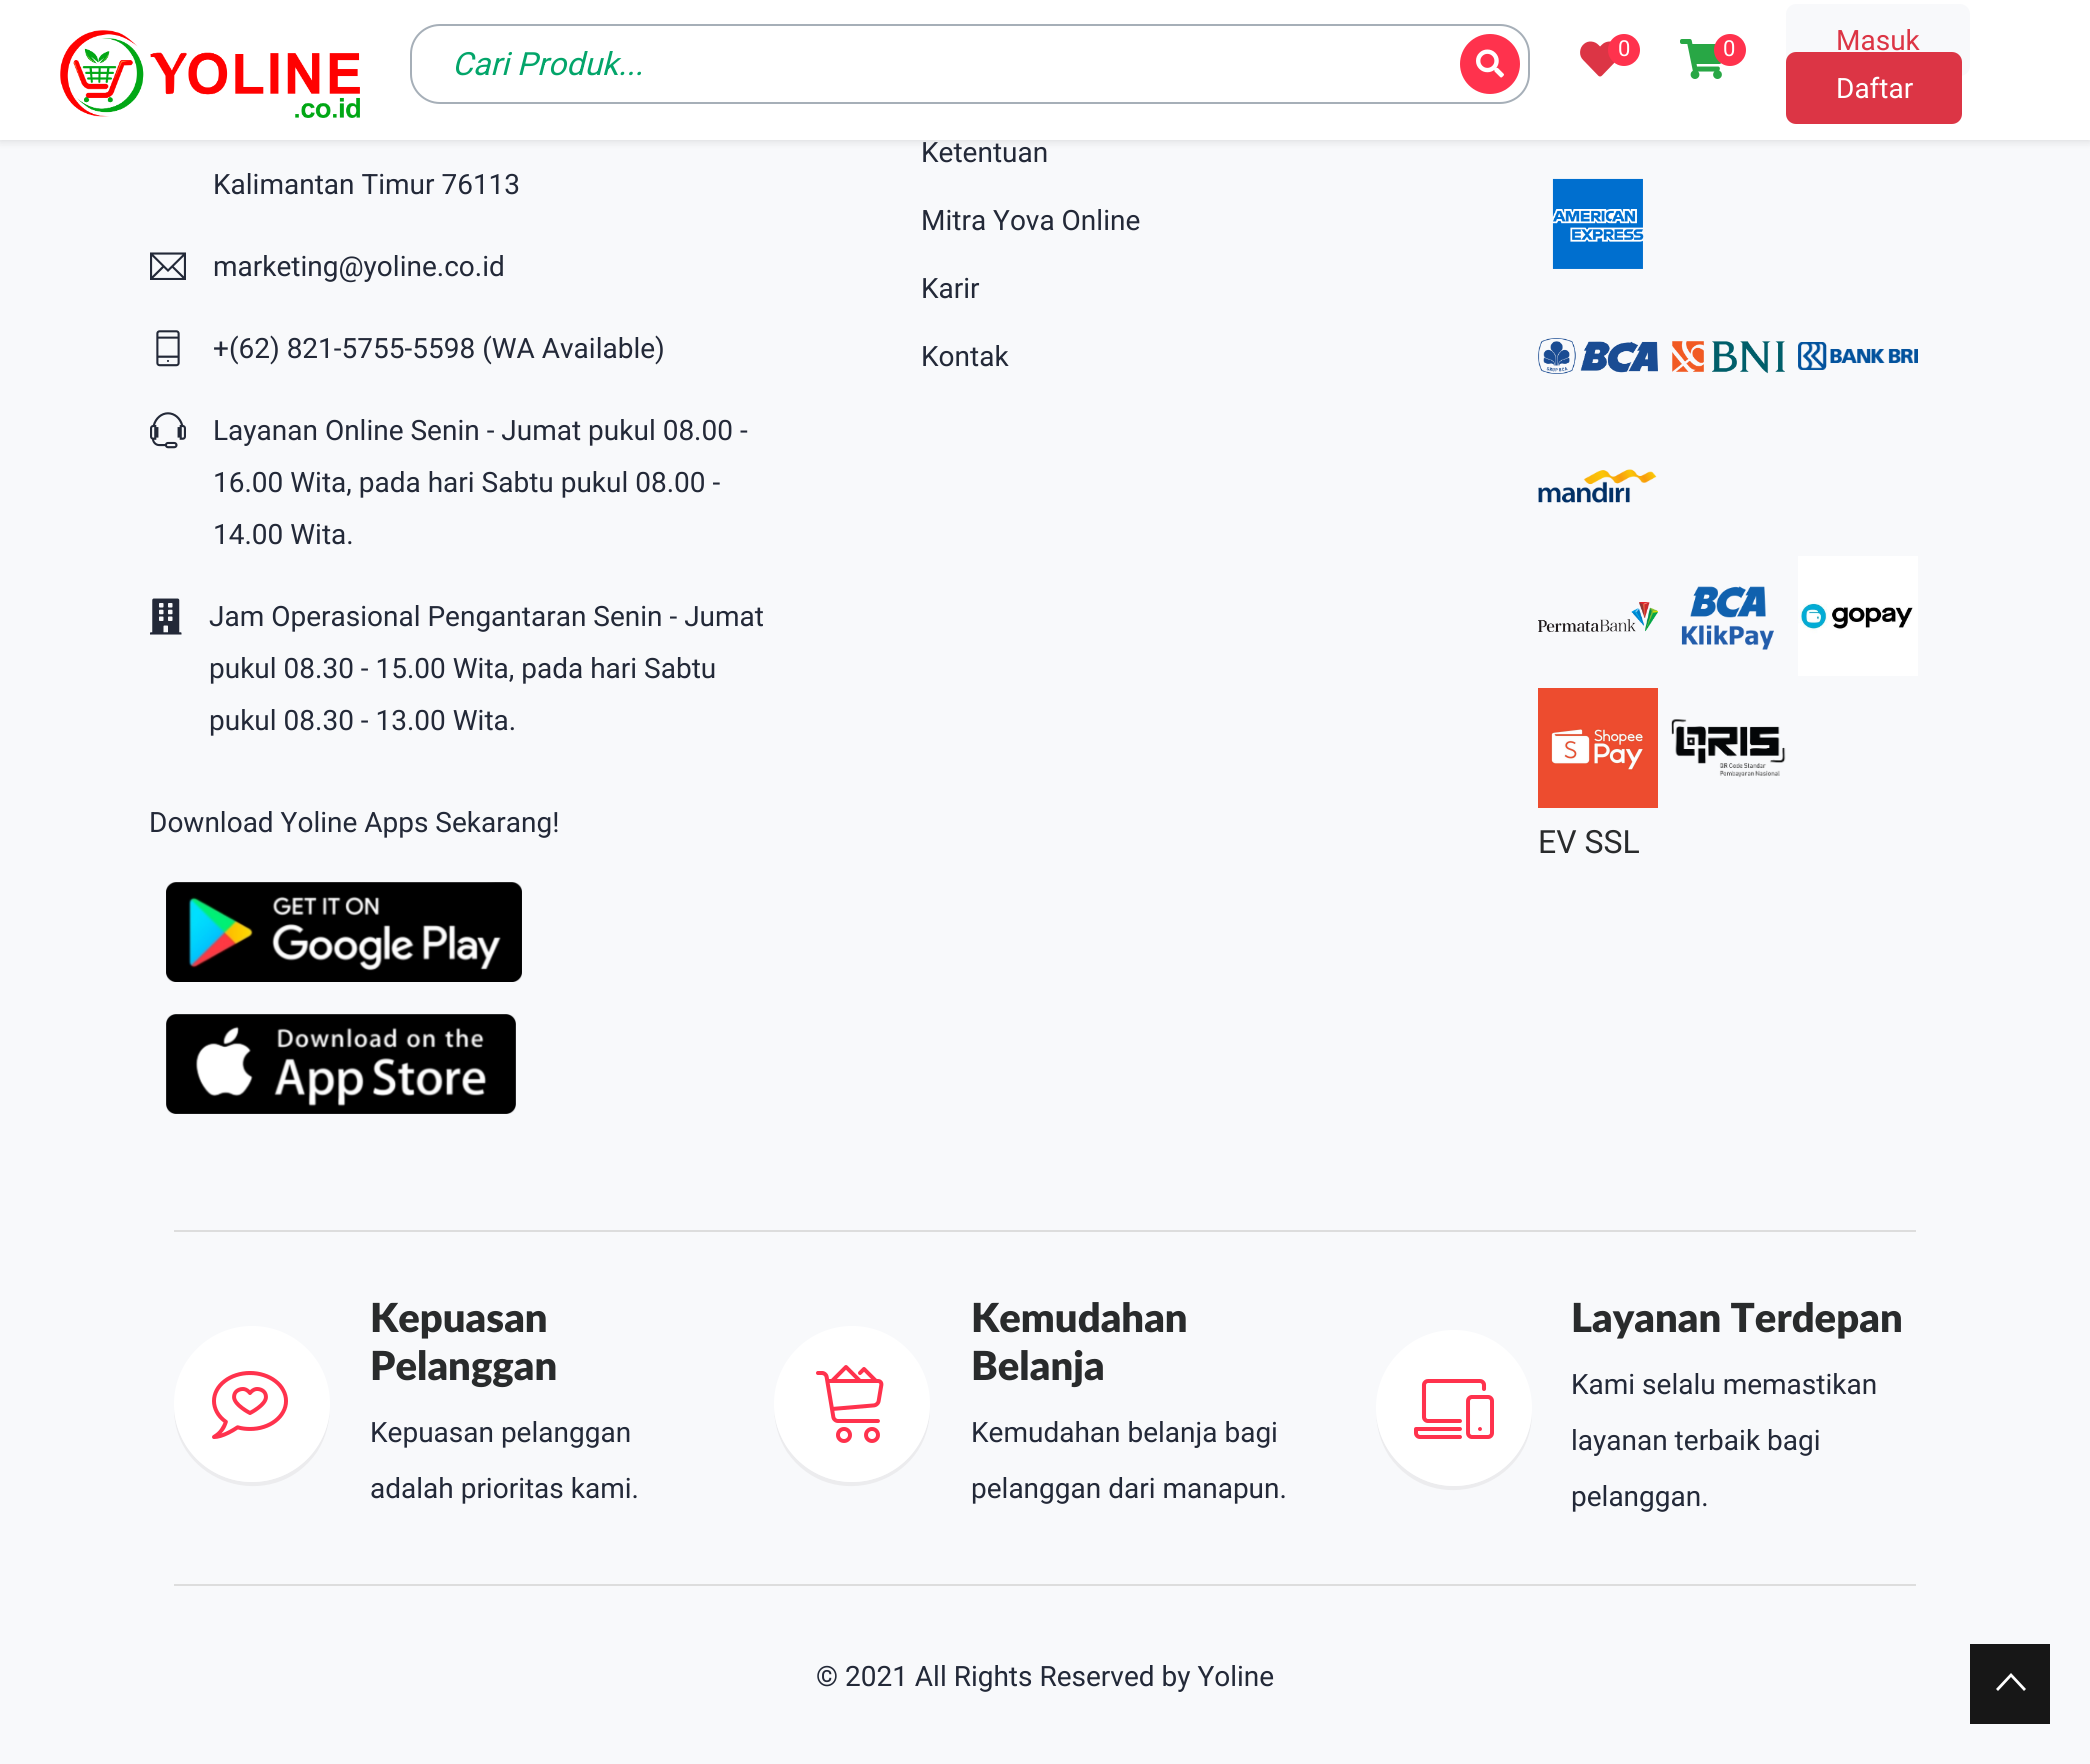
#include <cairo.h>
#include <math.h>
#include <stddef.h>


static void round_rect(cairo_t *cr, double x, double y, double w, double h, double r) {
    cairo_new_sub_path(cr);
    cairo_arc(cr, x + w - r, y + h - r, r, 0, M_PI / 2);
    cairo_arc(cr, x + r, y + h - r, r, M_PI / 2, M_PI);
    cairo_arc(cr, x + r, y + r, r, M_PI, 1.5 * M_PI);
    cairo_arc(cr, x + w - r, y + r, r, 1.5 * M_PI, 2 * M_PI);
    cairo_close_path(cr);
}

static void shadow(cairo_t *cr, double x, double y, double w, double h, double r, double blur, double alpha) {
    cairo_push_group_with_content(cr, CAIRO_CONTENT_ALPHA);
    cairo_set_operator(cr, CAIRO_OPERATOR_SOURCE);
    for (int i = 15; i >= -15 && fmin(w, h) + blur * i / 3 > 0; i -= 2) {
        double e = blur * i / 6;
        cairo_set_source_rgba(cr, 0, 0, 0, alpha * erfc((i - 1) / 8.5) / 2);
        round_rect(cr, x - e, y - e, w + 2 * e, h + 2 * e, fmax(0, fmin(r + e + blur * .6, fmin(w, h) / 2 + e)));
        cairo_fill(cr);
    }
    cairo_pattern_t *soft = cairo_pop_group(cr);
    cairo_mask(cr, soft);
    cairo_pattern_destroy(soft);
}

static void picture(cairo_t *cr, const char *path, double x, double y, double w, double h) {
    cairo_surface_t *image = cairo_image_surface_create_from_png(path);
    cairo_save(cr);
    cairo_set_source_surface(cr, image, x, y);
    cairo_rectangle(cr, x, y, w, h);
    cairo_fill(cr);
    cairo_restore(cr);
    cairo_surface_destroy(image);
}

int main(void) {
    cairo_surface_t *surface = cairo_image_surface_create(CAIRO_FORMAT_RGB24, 2090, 1764);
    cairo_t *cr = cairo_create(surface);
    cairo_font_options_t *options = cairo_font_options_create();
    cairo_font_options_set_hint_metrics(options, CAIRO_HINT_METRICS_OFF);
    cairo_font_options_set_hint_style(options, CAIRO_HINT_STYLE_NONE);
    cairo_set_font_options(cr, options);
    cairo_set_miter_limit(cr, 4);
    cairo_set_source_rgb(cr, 0.969, 0.973, 0.984);
    cairo_paint(cr);
    cairo_set_source_rgb(cr, 0, 0, 0);
    shadow(cr, 0, 0, 2090, 140, 0, 5, 0.15);
    cairo_set_source_rgb(cr, 1, 1, 1);
    cairo_rectangle(cr, 0, 0, 2090, 140);
    cairo_fill(cr);
    picture(cr, "img1.png", 60, 30, 300, 88);
    round_rect(cr, 411, 25, 1118, 78, 29);
    cairo_set_source_rgb(cr, 0.651, 0.686, 0.722);
    cairo_stroke(cr);
    cairo_select_font_face(cr, "Roboto", CAIRO_FONT_SLANT_ITALIC, CAIRO_FONT_WEIGHT_NORMAL);
    cairo_set_font_size(cr, 32);
    cairo_set_source_rgb(cr, 0.012, 0.647, 0.416);
    cairo_move_to(cr, 452, 75);
    cairo_show_text(cr, "Cari Produk...");
    cairo_set_source_rgb(cr, 1, 0.196, 0.302);
    cairo_new_path(cr);
    cairo_arc(cr, 1490, 64, 30, 0, 2 * M_PI);
    cairo_fill(cr);
    picture(cr, "img2.png", 1476, 49, 28, 29);
    picture(cr, "img3.png", 1580, 41, 35, 36);
    cairo_arc(cr, 1624, 50, 16, 0, 2 * M_PI);
    cairo_fill(cr);
    cairo_select_font_face(cr, "Roboto", CAIRO_FONT_SLANT_NORMAL, CAIRO_FONT_WEIGHT_NORMAL);
    cairo_set_font_size(cr, 22);
    cairo_set_source_rgb(cr, 1, 1, 1);
    cairo_move_to(cr, 1618, 56);
    cairo_show_text(cr, "0");
    picture(cr, "img4.png", 1680, 39, 42, 40);
    cairo_set_source_rgb(cr, 1, 0.196, 0.302);
    cairo_arc(cr, 1730, 50, 16, 0, 2 * M_PI);
    cairo_fill(cr);
    cairo_set_source_rgb(cr, 1, 1, 1);
    cairo_move_to(cr, 1723, 56);
    cairo_show_text(cr, "0");
    cairo_set_source_rgb(cr, 0.969, 0.973, 0.984);
    round_rect(cr, 1786, 4, 184, 72, 10);
    cairo_fill(cr);
    cairo_set_font_size(cr, 28);
    cairo_set_source_rgb(cr, 0.863, 0.208, 0.271);
    cairo_move_to(cr, 1836, 50);
    cairo_show_text(cr, "Masuk");
    round_rect(cr, 1786, 52, 176, 72, 10);
    cairo_fill(cr);
    cairo_set_source_rgb(cr, 1, 1, 1);
    cairo_move_to(cr, 1836, 98);
    cairo_show_text(cr, "Daftar");
    cairo_set_source_rgb(cr, 0.137, 0.161, 0.22);
    cairo_move_to(cr, 213, 194);
    cairo_show_text(cr, "Kalimantan Timur 76113");
    picture(cr, "img5.png", 150, 252, 36, 28);
    cairo_move_to(cr, 213, 276);
    cairo_show_text(cr, "marketing@yoline.co.id");
    picture(cr, "img6.png", 156, 330, 24, 37);
    cairo_move_to(cr, 213, 358);
    cairo_show_text(cr, "+(62) 821-5755-5598 (WA Available)");
    picture(cr, "img7.png", 150, 412, 36, 37);
    cairo_move_to(cr, 213, 440);
    cairo_show_text(cr, "Layanan Online Senin - Jumat pukul 08.00 -");
    cairo_move_to(cr, 213, 492);
    cairo_show_text(cr, "16.00 Wita, pada hari Sabtu pukul 08.00 -");
    cairo_move_to(cr, 213, 544);
    cairo_show_text(cr, "14.00 Wita.");
    picture(cr, "img8.png", 150, 598, 32, 37);
    cairo_move_to(cr, 209, 626);
    cairo_show_text(cr, "Jam Operasional Pengantaran Senin - Jumat");
    cairo_move_to(cr, 209, 678);
    cairo_show_text(cr, "pukul 08.30 - 15.00 Wita, pada hari Sabtu");
    cairo_move_to(cr, 209, 730);
    cairo_show_text(cr, "pukul 08.30 - 13.00 Wita.");
    cairo_move_to(cr, 149, 832);
    cairo_show_text(cr, "Download Yoline Apps Sekarang!");
    picture(cr, "img9.png", 166, 882, 356, 100);
    picture(cr, "img10.png", 166, 1014, 350, 100);
    cairo_move_to(cr, 921, 162);
    cairo_show_text(cr, "Ketentuan");
    cairo_move_to(cr, 921, 230);
    cairo_show_text(cr, "Mitra Yova Online");
    cairo_move_to(cr, 921, 298);
    cairo_show_text(cr, "Karir");
    cairo_move_to(cr, 921, 366);
    cairo_show_text(cr, "Kontak");
    picture(cr, "img11.png", 1552, 178, 92, 91);
    picture(cr, "img12.png", 1538, 338, 120, 36);
    picture(cr, "img13.png", 1672, 341, 113, 33);
    picture(cr, "img14.png", 1798, 342, 120, 28);
    picture(cr, "img15.png", 1538, 469, 119, 34);
    picture(cr, "img16.png", 1538, 602, 120, 30);
    picture(cr, "img17.png", 1681, 586, 93, 64);
    picture(cr, "img18.png", 1798, 556, 120, 120);
    picture(cr, "img19.png", 1538, 688, 120, 120);
    picture(cr, "img20.png", 1671, 719, 115, 59);
    cairo_set_font_size(cr, 32);
    cairo_set_source_rgb(cr, 0.161, 0.169, 0.173);
    cairo_move_to(cr, 1538, 853);
    cairo_show_text(cr, "EV SSL");
    cairo_set_source_rgb(cr, 0.867, 0.867, 0.867);
    cairo_rectangle(cr, 174, 1230, 1742, 2);
    cairo_fill(cr);
    cairo_rectangle(cr, 174, 1584, 1742, 2);
    cairo_fill(cr);
    cairo_set_source_rgb(cr, 0.922, 0.925, 0.933);
    cairo_new_path(cr);
    cairo_move_to(cr, 174, 1406);
    cairo_curve_to(cr, 172, 1484, 273, 1516, 317, 1452);
    cairo_curve_to(cr, 326, 1438, 330, 1422, 330, 1406);
    cairo_curve_to(cr, 329, 1448, 294, 1482, 252, 1482);
    cairo_curve_to(cr, 210, 1482, 175, 1448, 174, 1406);
    cairo_close_path(cr);
    cairo_fill(cr);
    cairo_set_source_rgb(cr, 1, 1, 1);
    cairo_arc(cr, 252, 1404, 78, 0, 2 * M_PI);
    cairo_fill(cr);
    picture(cr, "img21.png", 212, 1371, 76, 68);
    cairo_select_font_face(cr, "Lato Black", CAIRO_FONT_SLANT_NORMAL, CAIRO_FONT_WEIGHT_NORMAL);
    cairo_set_font_size(cr, 40);
    cairo_set_source_rgb(cr, 0.161, 0.169, 0.173);
    cairo_move_to(cr, 370, 1332);
    cairo_show_text(cr, "Kepuasan");
    cairo_move_to(cr, 370, 1380);
    cairo_show_text(cr, "Pelanggan");
    cairo_select_font_face(cr, "Roboto", CAIRO_FONT_SLANT_NORMAL, CAIRO_FONT_WEIGHT_NORMAL);
    cairo_set_font_size(cr, 28);
    cairo_set_source_rgb(cr, 0.137, 0.161, 0.22);
    cairo_move_to(cr, 370, 1442);
    cairo_show_text(cr, "Kepuasan pelanggan");
    cairo_move_to(cr, 370, 1498);
    cairo_show_text(cr, "adalah prioritas kami.");
    cairo_set_source_rgb(cr, 0.922, 0.925, 0.933);
    cairo_new_path(cr);
    cairo_move_to(cr, 774, 1406);
    cairo_curve_to(cr, 774, 1422, 778, 1438, 787, 1452);
    cairo_curve_to(cr, 831, 1516, 932, 1484, 930, 1406);
    cairo_curve_to(cr, 929, 1448, 894, 1482, 852, 1482);
    cairo_curve_to(cr, 810, 1482, 775, 1448, 774, 1406);
    cairo_close_path(cr);
    cairo_fill(cr);
    cairo_set_source_rgb(cr, 1, 1, 1);
    cairo_arc(cr, 852, 1404, 78, 0, 2 * M_PI);
    cairo_fill(cr);
    picture(cr, "img22.png", 816, 1365, 68, 78);
    cairo_select_font_face(cr, "Lato Black", CAIRO_FONT_SLANT_NORMAL, CAIRO_FONT_WEIGHT_NORMAL);
    cairo_set_font_size(cr, 40);
    cairo_set_source_rgb(cr, 0.161, 0.169, 0.173);
    cairo_move_to(cr, 971, 1332);
    cairo_show_text(cr, "Kemudahan");
    cairo_move_to(cr, 971, 1380);
    cairo_show_text(cr, "Belanja");
    cairo_select_font_face(cr, "Roboto", CAIRO_FONT_SLANT_NORMAL, CAIRO_FONT_WEIGHT_NORMAL);
    cairo_set_font_size(cr, 28);
    cairo_set_source_rgb(cr, 0.137, 0.161, 0.22);
    cairo_move_to(cr, 971, 1442);
    cairo_show_text(cr, "Kemudahan belanja bagi");
    cairo_move_to(cr, 971, 1498);
    cairo_show_text(cr, "pelanggan dari manapun.");
    cairo_set_source_rgb(cr, 0.922, 0.925, 0.933);
    cairo_new_path(cr);
    cairo_move_to(cr, 1376, 1410);
    cairo_curve_to(cr, 1376, 1426, 1380, 1442, 1389, 1456);
    cairo_curve_to(cr, 1433, 1520, 1534, 1488, 1532, 1410);
    cairo_curve_to(cr, 1531, 1452, 1496, 1486, 1454, 1486);
    cairo_curve_to(cr, 1412, 1486, 1377, 1452, 1376, 1410);
    cairo_close_path(cr);
    cairo_fill(cr);
    cairo_set_source_rgb(cr, 1, 1, 1);
    cairo_arc(cr, 1454, 1408, 78, 0, 2 * M_PI);
    cairo_fill(cr);
    picture(cr, "img23.png", 1414, 1379, 80, 60);
    cairo_select_font_face(cr, "Lato Black", CAIRO_FONT_SLANT_NORMAL, CAIRO_FONT_WEIGHT_NORMAL);
    cairo_set_font_size(cr, 40);
    cairo_set_source_rgb(cr, 0.161, 0.169, 0.173);
    cairo_move_to(cr, 1571, 1332);
    cairo_show_text(cr, "Layanan Terdepan");
    cairo_select_font_face(cr, "Roboto", CAIRO_FONT_SLANT_NORMAL, CAIRO_FONT_WEIGHT_NORMAL);
    cairo_set_font_size(cr, 28);
    cairo_set_source_rgb(cr, 0.137, 0.161, 0.22);
    cairo_move_to(cr, 1571, 1394);
    cairo_show_text(cr, "Kami selalu memastikan");
    cairo_move_to(cr, 1571, 1450);
    cairo_show_text(cr, "layanan terbaik bagi");
    cairo_move_to(cr, 1571, 1506);
    cairo_show_text(cr, "pelanggan.");
    cairo_move_to(cr, 816, 1686);
    cairo_show_text(cr, "© 2021 All Rights Reserved by Yoline");
    cairo_set_source_rgb(cr, 0.09, 0.09, 0.09);
    cairo_rectangle(cr, 1970, 1644, 80, 80);
    cairo_fill(cr);
    cairo_set_source_rgb(cr, 1, 1, 1);
    cairo_new_path(cr);
    cairo_move_to(cr, 2024, 1691);
    cairo_line_to(cr, 2011, 1677);
    cairo_line_to(cr, 1998, 1691);
    cairo_line_to(cr, 1996, 1689);
    cairo_line_to(cr, 2011, 1673);
    cairo_line_to(cr, 2026, 1689);
    cairo_close_path(cr);
    cairo_fill(cr);
    cairo_surface_write_to_png(surface, "page.png");
    cairo_font_options_destroy(options);
    cairo_destroy(cr);
    cairo_surface_destroy(surface);
    return 0;
}
